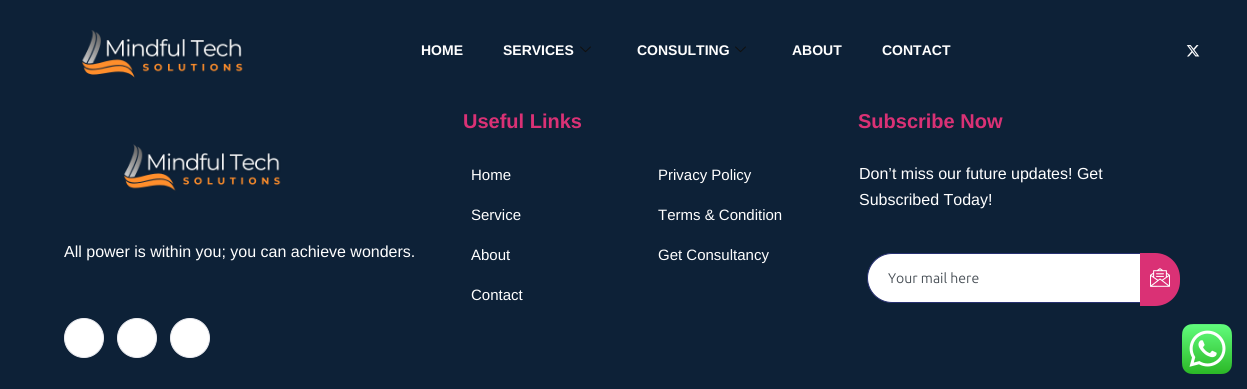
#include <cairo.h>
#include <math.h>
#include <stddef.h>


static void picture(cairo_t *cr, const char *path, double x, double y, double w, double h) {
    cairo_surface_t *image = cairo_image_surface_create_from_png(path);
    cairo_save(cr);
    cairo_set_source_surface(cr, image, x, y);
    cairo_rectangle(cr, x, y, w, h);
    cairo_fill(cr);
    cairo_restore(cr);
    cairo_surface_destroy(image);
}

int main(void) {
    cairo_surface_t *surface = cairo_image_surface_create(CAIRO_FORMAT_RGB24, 1247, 389);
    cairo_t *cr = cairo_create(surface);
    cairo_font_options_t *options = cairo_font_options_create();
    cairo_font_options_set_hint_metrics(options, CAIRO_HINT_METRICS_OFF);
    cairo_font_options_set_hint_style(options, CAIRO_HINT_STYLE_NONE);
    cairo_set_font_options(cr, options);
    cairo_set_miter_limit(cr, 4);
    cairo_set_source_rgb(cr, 0.051, 0.129, 0.216);
    cairo_paint(cr);
    picture(cr, "img1.png", 82, 30, 161, 48);
    cairo_select_font_face(cr, "Liberation Sans", CAIRO_FONT_SLANT_NORMAL, CAIRO_FONT_WEIGHT_BOLD);
    cairo_set_font_size(cr, 14);
    cairo_set_source_rgb(cr, 1, 1, 1);
    cairo_move_to(cr, 421, 55);
    cairo_show_text(cr, "HOME");
    cairo_move_to(cr, 503, 55);
    cairo_show_text(cr, "SERVICES");
    picture(cr, "img2.png", 580, 46, 11, 7);
    cairo_move_to(cr, 637, 55);
    cairo_show_text(cr, "CONSULTING");
    picture(cr, "img2.png", 735, 46, 11, 7);
    cairo_move_to(cr, 792, 55);
    cairo_show_text(cr, "ABOUT");
    cairo_move_to(cr, 882, 55);
    cairo_show_text(cr, "CONTACT");
    picture(cr, "img3.png", 1186, 45, 14, 12);
    picture(cr, "img4.png", 124, 144, 157, 47);
    cairo_select_font_face(cr, "Liberation Sans", CAIRO_FONT_SLANT_NORMAL, CAIRO_FONT_WEIGHT_NORMAL);
    cairo_set_font_size(cr, 16);
    cairo_move_to(cr, 64, 257);
    cairo_show_text(cr, "All power is within you; you can achieve wonders.");
    cairo_new_path(cr);
    cairo_arc(cr, 84, 338, 19.5, 0, 2 * M_PI);
    cairo_fill_preserve(cr);
    cairo_set_source_rgb(cr, 0.918, 0.922, 0.945);
    cairo_set_line_width(cr, 1);
    cairo_stroke(cr);
    cairo_set_source_rgb(cr, 1, 1, 1);
    cairo_arc(cr, 137, 338, 19.5, 0, 2 * M_PI);
    cairo_fill_preserve(cr);
    cairo_set_source_rgb(cr, 0.918, 0.922, 0.945);
    cairo_stroke(cr);
    cairo_set_source_rgb(cr, 1, 1, 1);
    cairo_arc(cr, 190, 338, 19.5, 0, 2 * M_PI);
    cairo_fill_preserve(cr);
    cairo_set_source_rgb(cr, 0.918, 0.922, 0.945);
    cairo_stroke(cr);
    cairo_select_font_face(cr, "Liberation Sans", CAIRO_FONT_SLANT_NORMAL, CAIRO_FONT_WEIGHT_BOLD);
    cairo_set_font_size(cr, 20);
    cairo_set_source_rgb(cr, 0.855, 0.192, 0.459);
    cairo_move_to(cr, 463, 128);
    cairo_show_text(cr, "Useful Links");
    cairo_select_font_face(cr, "Liberation Sans", CAIRO_FONT_SLANT_NORMAL, CAIRO_FONT_WEIGHT_NORMAL);
    cairo_set_font_size(cr, 15);
    cairo_set_source_rgb(cr, 1, 1, 1);
    cairo_move_to(cr, 471, 180);
    cairo_show_text(cr, "Home");
    cairo_move_to(cr, 471, 220);
    cairo_show_text(cr, "Service");
    cairo_move_to(cr, 471, 260);
    cairo_show_text(cr, "About");
    cairo_move_to(cr, 471, 300);
    cairo_show_text(cr, "Contact");
    cairo_move_to(cr, 658, 180);
    cairo_show_text(cr, "Privacy Policy");
    cairo_move_to(cr, 658, 220);
    cairo_show_text(cr, "Terms & Condition");
    cairo_move_to(cr, 658, 260);
    cairo_show_text(cr, "Get Consultancy");
    cairo_select_font_face(cr, "Liberation Sans", CAIRO_FONT_SLANT_NORMAL, CAIRO_FONT_WEIGHT_BOLD);
    cairo_set_font_size(cr, 20);
    cairo_set_source_rgb(cr, 0.855, 0.192, 0.459);
    cairo_move_to(cr, 858, 128);
    cairo_show_text(cr, "Subscribe Now");
    cairo_select_font_face(cr, "Liberation Sans", CAIRO_FONT_SLANT_NORMAL, CAIRO_FONT_WEIGHT_NORMAL);
    cairo_set_font_size(cr, 16);
    cairo_set_source_rgb(cr, 1, 1, 1);
    cairo_move_to(cr, 859, 179);
    cairo_show_text(cr, "Don’t miss our future updates! Get");
    cairo_move_to(cr, 859, 205);
    cairo_show_text(cr, "Subscribed Today!");
    cairo_new_path(cr);
    cairo_move_to(cr, 892, 253.5);
    cairo_line_to(cr, 1141.5, 253.5);
    cairo_line_to(cr, 1141.5, 302.5);
    cairo_line_to(cr, 892, 302.5);
    cairo_curve_to(cr, 878.5, 302.5, 867.5, 291.5, 867.5, 278);
    cairo_curve_to(cr, 867.5, 264.5, 878.5, 253.5, 892, 253.5);
    cairo_close_path(cr);
    cairo_fill_preserve(cr);
    cairo_set_source_rgb(cr, 0.153, 0.192, 0.443);
    cairo_stroke(cr);
    cairo_select_font_face(cr, "Ubuntu", CAIRO_FONT_SLANT_NORMAL, CAIRO_FONT_WEIGHT_NORMAL);
    cairo_set_font_size(cr, 14);
    cairo_set_source_rgb(cr, 0.286, 0.314, 0.341);
    cairo_move_to(cr, 888, 283);
    cairo_show_text(cr, "Your mail here");
    cairo_set_source_rgb(cr, 0.855, 0.192, 0.459);
    cairo_new_path(cr);
    cairo_move_to(cr, 1140, 253);
    cairo_line_to(cr, 1155, 253);
    cairo_curve_to(cr, 1169, 253, 1180, 264, 1180, 278);
    cairo_line_to(cr, 1180, 281);
    cairo_curve_to(cr, 1180, 295, 1169, 306, 1155, 306);
    cairo_line_to(cr, 1140, 306);
    cairo_close_path(cr);
    cairo_fill(cr);
    picture(cr, "img5.png", 1150, 268, 20, 19);
    picture(cr, "img6.png", 1182, 324, 50, 50);
    cairo_surface_write_to_png(surface, "page.png");
    cairo_font_options_destroy(options);
    cairo_destroy(cr);
    cairo_surface_destroy(surface);
    return 0;
}
